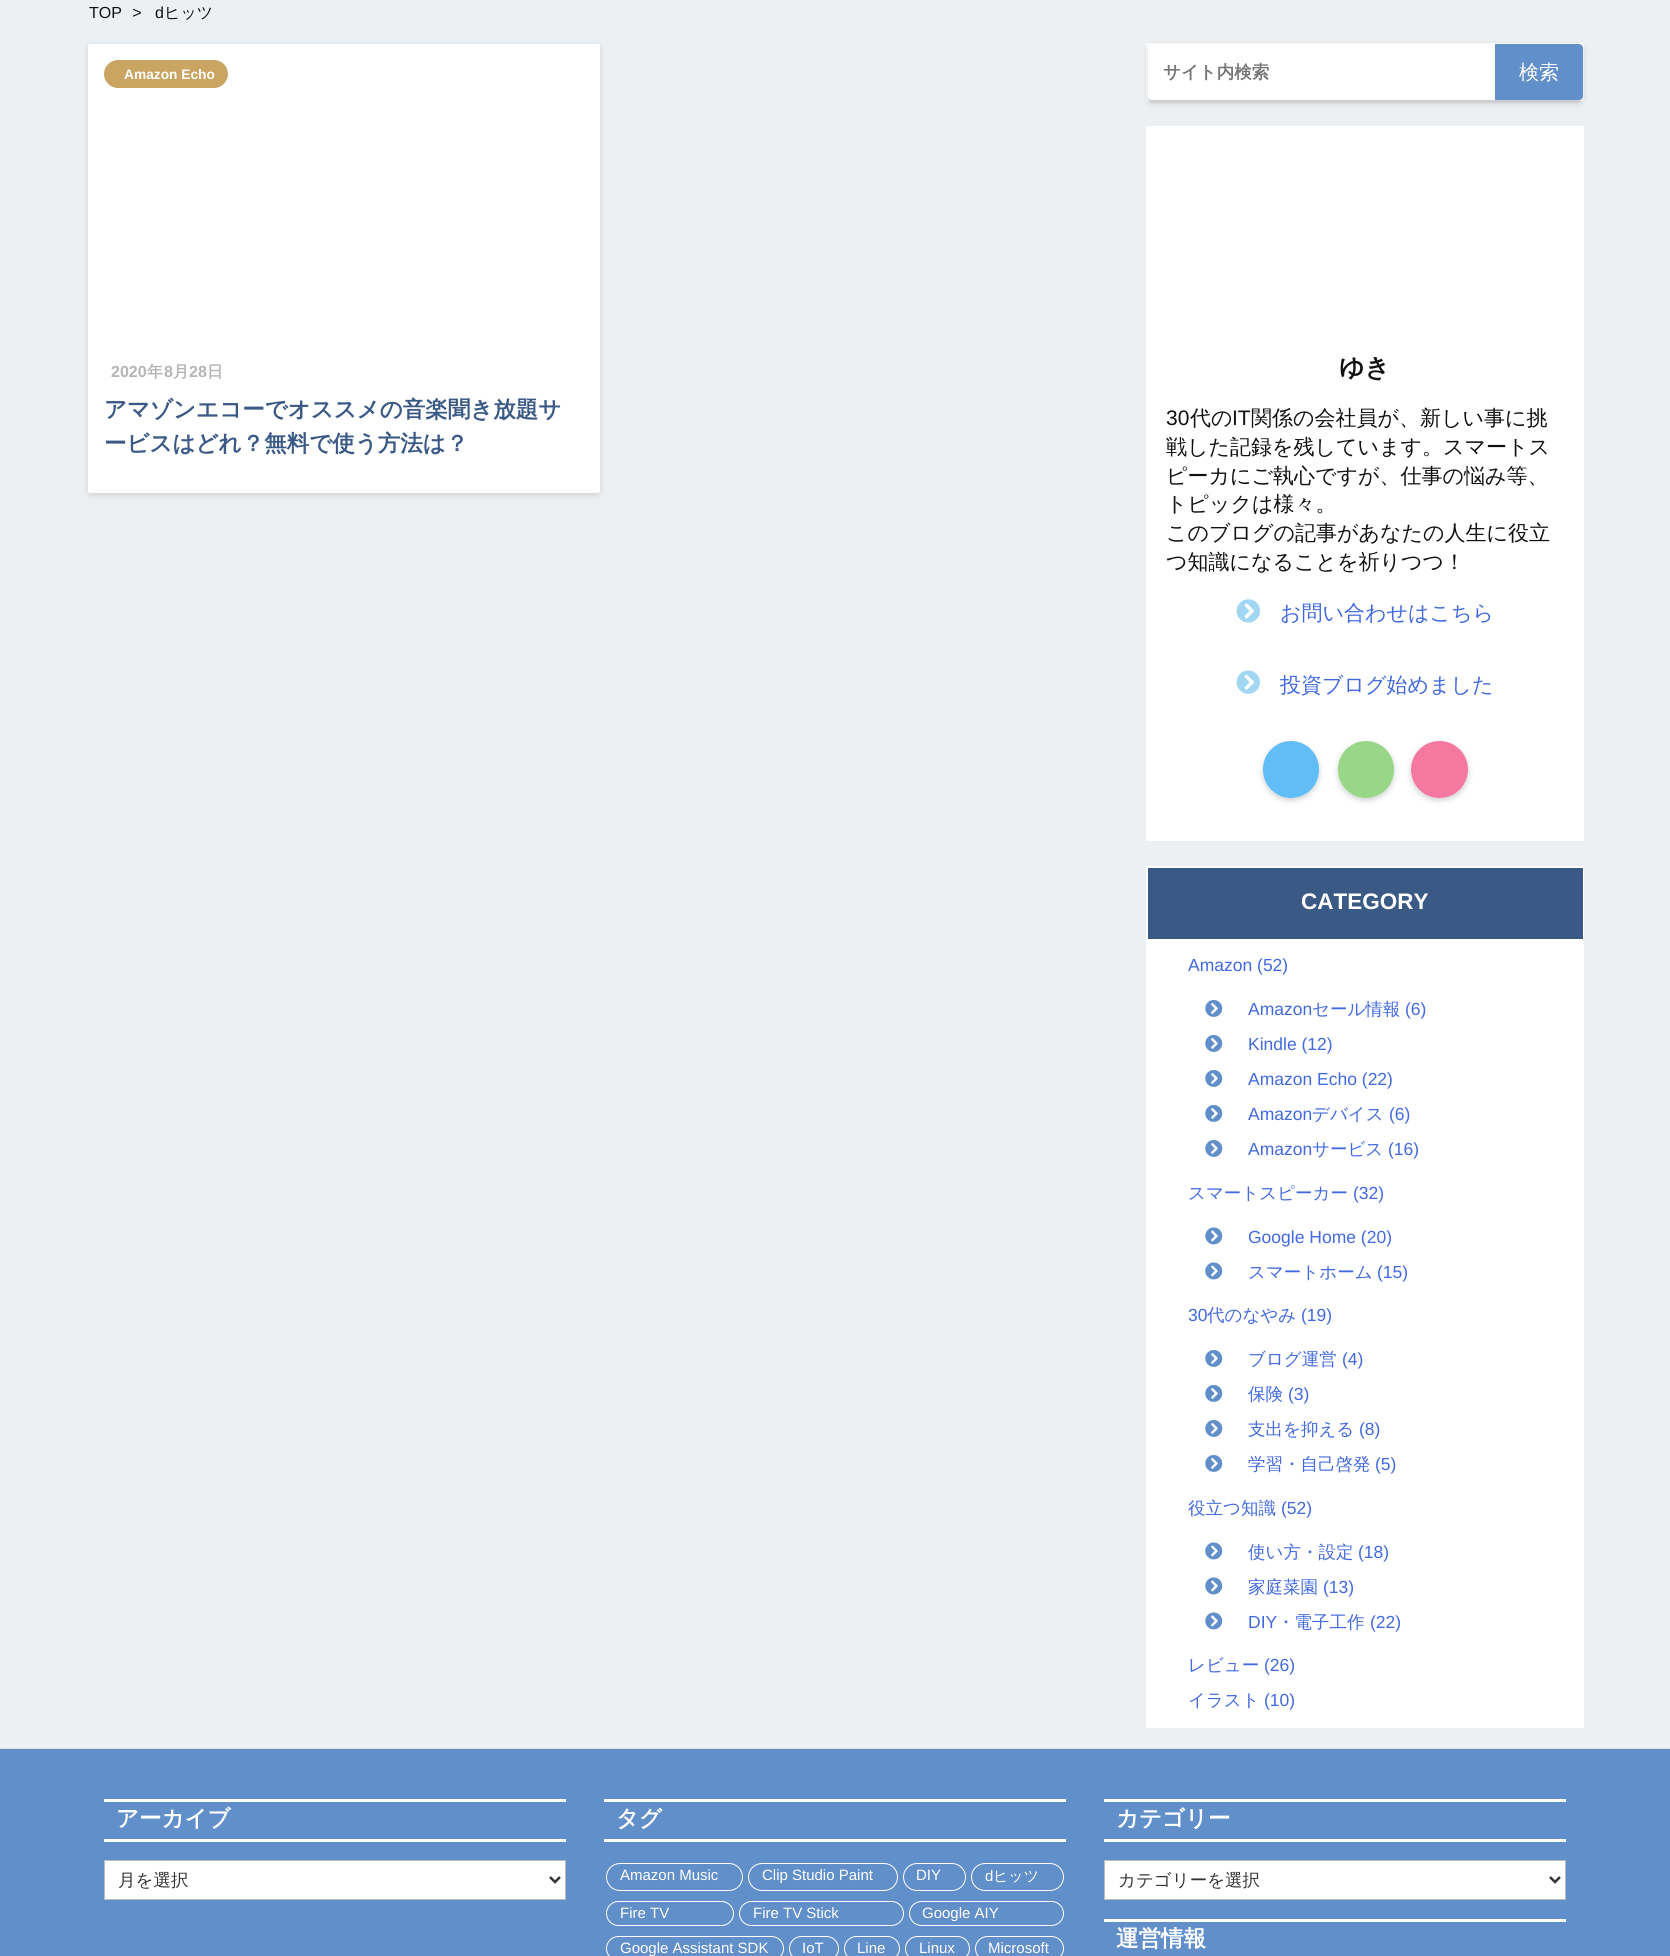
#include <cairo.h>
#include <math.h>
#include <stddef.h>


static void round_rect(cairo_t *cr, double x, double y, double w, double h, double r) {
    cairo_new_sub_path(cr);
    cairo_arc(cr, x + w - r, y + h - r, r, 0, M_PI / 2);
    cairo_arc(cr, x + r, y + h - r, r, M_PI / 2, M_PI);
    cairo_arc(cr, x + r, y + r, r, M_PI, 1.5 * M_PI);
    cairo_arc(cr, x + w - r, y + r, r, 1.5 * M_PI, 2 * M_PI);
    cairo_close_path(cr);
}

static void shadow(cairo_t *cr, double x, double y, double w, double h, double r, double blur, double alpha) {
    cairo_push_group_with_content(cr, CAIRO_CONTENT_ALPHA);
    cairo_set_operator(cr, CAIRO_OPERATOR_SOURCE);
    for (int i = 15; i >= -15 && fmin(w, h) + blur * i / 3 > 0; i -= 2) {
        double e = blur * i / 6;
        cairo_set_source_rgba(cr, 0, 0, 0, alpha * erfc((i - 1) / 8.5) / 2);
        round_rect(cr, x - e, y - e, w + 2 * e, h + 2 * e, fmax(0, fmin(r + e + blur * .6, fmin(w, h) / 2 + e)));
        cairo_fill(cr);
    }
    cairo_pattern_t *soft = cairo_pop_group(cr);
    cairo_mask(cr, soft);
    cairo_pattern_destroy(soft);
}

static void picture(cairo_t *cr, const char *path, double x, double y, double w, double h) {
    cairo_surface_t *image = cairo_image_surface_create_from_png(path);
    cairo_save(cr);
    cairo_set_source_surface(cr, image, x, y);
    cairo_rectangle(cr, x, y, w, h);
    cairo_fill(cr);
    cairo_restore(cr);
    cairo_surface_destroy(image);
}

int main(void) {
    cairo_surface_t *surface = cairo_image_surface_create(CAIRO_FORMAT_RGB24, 1670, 1956);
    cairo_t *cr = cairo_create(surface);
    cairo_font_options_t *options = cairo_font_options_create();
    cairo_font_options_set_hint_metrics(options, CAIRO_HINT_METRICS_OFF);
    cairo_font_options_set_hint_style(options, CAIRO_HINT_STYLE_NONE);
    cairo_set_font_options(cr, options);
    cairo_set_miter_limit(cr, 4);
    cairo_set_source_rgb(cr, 0.929, 0.941, 0.949);
    cairo_paint(cr);
    cairo_select_font_face(cr, "Liberation Sans", CAIRO_FONT_SLANT_NORMAL, CAIRO_FONT_WEIGHT_NORMAL);
    cairo_set_font_size(cr, 16);
    cairo_set_source_rgb(cr, 0.067, 0.067, 0.067);
    cairo_move_to(cr, 89, 18);
    cairo_show_text(cr, "TOP");
    cairo_select_font_face(cr, "Liberation Sans", CAIRO_FONT_SLANT_ITALIC, CAIRO_FONT_WEIGHT_NORMAL);
    cairo_move_to(cr, 132, 18);
    cairo_show_text(cr, ">");
    cairo_select_font_face(cr, "Liberation Sans", CAIRO_FONT_SLANT_NORMAL, CAIRO_FONT_WEIGHT_NORMAL);
    cairo_move_to(cr, 155, 18);
    cairo_show_text(cr, "d");
    cairo_select_font_face(cr, "WenQuanYi Zen Hei Medium", CAIRO_FONT_SLANT_NORMAL, CAIRO_FONT_WEIGHT_NORMAL);
    cairo_move_to(cr, 164, 18);
    cairo_show_text(cr, "ヒッツ");
    cairo_set_source_rgb(cr, 0, 0, 0);
    shadow(cr, 88, 46, 512, 449, 2.5, 3, 0.13);
    cairo_set_source_rgb(cr, 1, 1, 1);
    round_rect(cr, 88, 44, 512, 449, 2.5);
    cairo_fill(cr);
    cairo_set_source_rgb(cr, 0.788, 0.647, 0.38);
    round_rect(cr, 104, 60, 124, 28, 14);
    cairo_fill(cr);
    cairo_select_font_face(cr, "Liberation Sans", CAIRO_FONT_SLANT_NORMAL, CAIRO_FONT_WEIGHT_BOLD);
    cairo_set_font_size(cr, 13.75);
    cairo_set_source_rgb(cr, 1, 1, 1);
    cairo_move_to(cr, 124, 79);
    cairo_show_text(cr, "Amazon Echo");
    cairo_set_font_size(cr, 16);
    cairo_set_source_rgb(cr, 0.71, 0.71, 0.71);
    cairo_move_to(cr, 111, 377);
    cairo_show_text(cr, "2020");
    cairo_select_font_face(cr, "WenQuanYi Zen Hei", CAIRO_FONT_SLANT_NORMAL, CAIRO_FONT_WEIGHT_BOLD);
    cairo_move_to(cr, 147, 377);
    cairo_show_text(cr, "年");
    cairo_select_font_face(cr, "Liberation Sans", CAIRO_FONT_SLANT_NORMAL, CAIRO_FONT_WEIGHT_BOLD);
    cairo_move_to(cr, 164, 377);
    cairo_show_text(cr, "8");
    cairo_select_font_face(cr, "WenQuanYi Zen Hei", CAIRO_FONT_SLANT_NORMAL, CAIRO_FONT_WEIGHT_BOLD);
    cairo_move_to(cr, 173, 377);
    cairo_show_text(cr, "月");
    cairo_select_font_face(cr, "Liberation Sans", CAIRO_FONT_SLANT_NORMAL, CAIRO_FONT_WEIGHT_BOLD);
    cairo_move_to(cr, 189, 377);
    cairo_show_text(cr, "28");
    cairo_select_font_face(cr, "WenQuanYi Zen Hei", CAIRO_FONT_SLANT_NORMAL, CAIRO_FONT_WEIGHT_BOLD);
    cairo_move_to(cr, 207, 377);
    cairo_show_text(cr, "日");
    cairo_set_font_size(cr, 22.5);
    cairo_set_source_rgb(cr, 0.227, 0.349, 0.522);
    cairo_move_to(cr, 104, 417);
    cairo_show_text(cr, "アマゾンエコーでオススメの音楽聞き放題サ");
    cairo_move_to(cr, 104, 451);
    cairo_show_text(cr, "ービスはどれ？無料で使う方法は？");
    cairo_set_source_rgb(cr, 1, 1, 1);
    cairo_rectangle(cr, 1146, 43, 438, 58);
    cairo_fill(cr);
    cairo_set_source_rgb(cr, 0, 0, 0);
    shadow(cr, 1150, 50, 430, 51, 1, 2, 0.15);
    shadow(cr, 1148, 46, 435, 57, 4, 3, 0.15);
    cairo_set_source_rgb(cr, 1, 1, 1);
    round_rect(cr, 1148, 44, 435, 56, 4);
    cairo_fill(cr);
    cairo_set_font_size(cr, 17.5);
    cairo_set_source_rgb(cr, 0.463, 0.463, 0.463);
    cairo_move_to(cr, 1163, 78);
    cairo_show_text(cr, "サイト内検索");
    cairo_set_source_rgb(cr, 0.38, 0.561, 0.792);
    cairo_new_path(cr);
    cairo_move_to(cr, 1495, 44);
    cairo_line_to(cr, 1579, 44);
    cairo_curve_to(cr, 1581, 44, 1583, 46, 1583, 48);
    cairo_line_to(cr, 1583, 96);
    cairo_curve_to(cr, 1583, 98, 1581, 100, 1579, 100);
    cairo_line_to(cr, 1495, 100);
    cairo_close_path(cr);
    cairo_fill(cr);
    cairo_select_font_face(cr, "WenQuanYi Zen Hei Medium", CAIRO_FONT_SLANT_NORMAL, CAIRO_FONT_WEIGHT_NORMAL);
    cairo_set_font_size(cr, 20);
    cairo_set_source_rgb(cr, 1, 1, 1);
    cairo_move_to(cr, 1519, 79);
    cairo_show_text(cr, "検索");
    cairo_rectangle(cr, 1146, 126, 438, 715);
    cairo_fill(cr);
    cairo_select_font_face(cr, "WenQuanYi Zen Hei", CAIRO_FONT_SLANT_NORMAL, CAIRO_FONT_WEIGHT_BOLD);
    cairo_set_font_size(cr, 25);
    cairo_set_source_rgb(cr, 0.067, 0.067, 0.067);
    cairo_move_to(cr, 1339, 376);
    cairo_show_text(cr, "ゆき");
    cairo_select_font_face(cr, "Liberation Sans", CAIRO_FONT_SLANT_NORMAL, CAIRO_FONT_WEIGHT_NORMAL);
    cairo_set_font_size(cr, 21);
    cairo_move_to(cr, 1166, 425);
    cairo_show_text(cr, "30");
    cairo_select_font_face(cr, "WenQuanYi Zen Hei Medium", CAIRO_FONT_SLANT_NORMAL, CAIRO_FONT_WEIGHT_NORMAL);
    cairo_move_to(cr, 1190, 425);
    cairo_show_text(cr, "代の");
    cairo_select_font_face(cr, "Liberation Sans", CAIRO_FONT_SLANT_NORMAL, CAIRO_FONT_WEIGHT_NORMAL);
    cairo_move_to(cr, 1232, 425);
    cairo_show_text(cr, "IT");
    cairo_select_font_face(cr, "WenQuanYi Zen Hei Medium", CAIRO_FONT_SLANT_NORMAL, CAIRO_FONT_WEIGHT_NORMAL);
    cairo_move_to(cr, 1251, 425);
    cairo_show_text(cr, "関係の会社員が、新しい事に挑");
    cairo_move_to(cr, 1166, 454);
    cairo_show_text(cr, "戦した記録を残しています。スマートス");
    cairo_move_to(cr, 1166, 483);
    cairo_show_text(cr, "ピーカにご執心ですが、仕事の悩み等、");
    cairo_move_to(cr, 1166, 511);
    cairo_show_text(cr, "トピックは様々。");
    cairo_move_to(cr, 1166, 540);
    cairo_show_text(cr, "このブログの記事があなたの人生に役立");
    cairo_move_to(cr, 1166, 569);
    cairo_show_text(cr, "つ知識になることを祈りつつ！");
    picture(cr, "img1.png", 1236, 599, 24, 24);
    cairo_set_source_rgb(cr, 0.255, 0.412, 0.882);
    cairo_move_to(cr, 1280, 620);
    cairo_show_text(cr, "お問い合わせはこちら");
    picture(cr, "img2.png", 1236, 670, 24, 24);
    cairo_move_to(cr, 1280, 692);
    cairo_show_text(cr, "投資ブログ始めました");
    cairo_save(cr);
    cairo_set_fill_rule(cr, CAIRO_FILL_RULE_EVEN_ODD);
    cairo_new_path(cr);
    cairo_move_to(cr, 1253, 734);
    cairo_line_to(cr, 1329, 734);
    cairo_line_to(cr, 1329, 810);
    cairo_line_to(cr, 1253, 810);
    cairo_close_path(cr);
    cairo_move_to(cr, 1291, 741);
    cairo_curve_to(cr, 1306.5, 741, 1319, 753.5, 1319, 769);
    cairo_line_to(cr, 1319, 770);
    cairo_curve_to(cr, 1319, 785.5, 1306.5, 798, 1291, 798);
    cairo_curve_to(cr, 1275.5, 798, 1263, 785.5, 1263, 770);
    cairo_line_to(cr, 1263, 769);
    cairo_curve_to(cr, 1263, 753.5, 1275.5, 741, 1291, 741);
    cairo_close_path(cr);
    cairo_clip(cr);
    cairo_set_source_rgb(cr, 0, 0, 0);
    shadow(cr, 1263, 744, 56, 56, 28, 3, 0.2);
    cairo_restore(cr);
    cairo_set_source_rgba(cr, 0.114, 0.631, 0.949, 0.7);
    round_rect(cr, 1263, 741, 56, 57, 28);
    cairo_fill(cr);
    cairo_save(cr);
    cairo_set_fill_rule(cr, CAIRO_FILL_RULE_EVEN_ODD);
    cairo_new_path(cr);
    cairo_move_to(cr, 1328, 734);
    cairo_line_to(cr, 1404, 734);
    cairo_line_to(cr, 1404, 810);
    cairo_line_to(cr, 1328, 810);
    cairo_close_path(cr);
    cairo_move_to(cr, 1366, 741);
    cairo_curve_to(cr, 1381.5, 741, 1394, 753.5, 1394, 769);
    cairo_line_to(cr, 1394, 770);
    cairo_curve_to(cr, 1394, 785.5, 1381.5, 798, 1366, 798);
    cairo_curve_to(cr, 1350.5, 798, 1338, 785.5, 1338, 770);
    cairo_line_to(cr, 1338, 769);
    cairo_curve_to(cr, 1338, 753.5, 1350.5, 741, 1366, 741);
    cairo_close_path(cr);
    cairo_clip(cr);
    cairo_set_source_rgb(cr, 0, 0, 0);
    shadow(cr, 1338, 744, 56, 56, 28, 3, 0.2);
    cairo_restore(cr);
    cairo_set_source_rgba(cr, 0.424, 0.776, 0.333, 0.7);
    round_rect(cr, 1338, 741, 56, 57, 28);
    cairo_fill(cr);
    cairo_save(cr);
    cairo_set_fill_rule(cr, CAIRO_FILL_RULE_EVEN_ODD);
    cairo_new_path(cr);
    cairo_move_to(cr, 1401, 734);
    cairo_line_to(cr, 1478, 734);
    cairo_line_to(cr, 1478, 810);
    cairo_line_to(cr, 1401, 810);
    cairo_close_path(cr);
    cairo_move_to(cr, 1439.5, 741);
    cairo_curve_to(cr, 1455, 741, 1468, 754, 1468, 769.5);
    cairo_curve_to(cr, 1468, 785, 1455, 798, 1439.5, 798);
    cairo_curve_to(cr, 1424, 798, 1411, 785, 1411, 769.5);
    cairo_curve_to(cr, 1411, 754, 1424, 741, 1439.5, 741);
    cairo_close_path(cr);
    cairo_clip(cr);
    cairo_set_source_rgb(cr, 0, 0, 0);
    shadow(cr, 1411, 744, 57, 56, 28, 3, 0.2);
    cairo_restore(cr);
    cairo_set_source_rgba(cr, 0.945, 0.247, 0.475, 0.7);
    cairo_arc(cr, 1439.5, 769.5, 28.5, 0, 2 * M_PI);
    cairo_fill(cr);
    cairo_set_source_rgb(cr, 1, 1, 1);
    cairo_rectangle(cr, 1146, 866, 438, 862);
    cairo_fill(cr);
    cairo_set_source_rgb(cr, 0.227, 0.349, 0.522);
    cairo_rectangle(cr, 1148, 868, 435, 71);
    cairo_fill(cr);
    cairo_select_font_face(cr, "Liberation Sans", CAIRO_FONT_SLANT_NORMAL, CAIRO_FONT_WEIGHT_BOLD);
    cairo_set_font_size(cr, 22.5);
    cairo_set_source_rgb(cr, 1, 1, 1);
    cairo_move_to(cr, 1301, 909);
    cairo_show_text(cr, "CATEGORY");
    cairo_select_font_face(cr, "Liberation Sans", CAIRO_FONT_SLANT_NORMAL, CAIRO_FONT_WEIGHT_NORMAL);
    cairo_set_font_size(cr, 17.5);
    cairo_set_source_rgb(cr, 0.255, 0.412, 0.882);
    cairo_move_to(cr, 1188, 971);
    cairo_show_text(cr, "Amazon (52)");
    picture(cr, "img3.png", 1205, 1000, 18, 17);
    cairo_move_to(cr, 1248, 1015);
    cairo_show_text(cr, "Amazon");
    cairo_select_font_face(cr, "WenQuanYi Zen Hei Medium", CAIRO_FONT_SLANT_NORMAL, CAIRO_FONT_WEIGHT_NORMAL);
    cairo_move_to(cr, 1312, 1015);
    cairo_show_text(cr, "セール情報");
    cairo_select_font_face(cr, "Liberation Sans", CAIRO_FONT_SLANT_NORMAL, CAIRO_FONT_WEIGHT_NORMAL);
    cairo_move_to(cr, 1405, 1015);
    cairo_show_text(cr, "(6)");
    picture(cr, "img3.png", 1205, 1035, 18, 17);
    cairo_move_to(cr, 1248, 1050);
    cairo_show_text(cr, "Kindle (12)");
    picture(cr, "img3.png", 1205, 1070, 18, 17);
    cairo_move_to(cr, 1248, 1085);
    cairo_show_text(cr, "Amazon Echo (22)");
    picture(cr, "img3.png", 1205, 1105, 18, 17);
    cairo_move_to(cr, 1248, 1120);
    cairo_show_text(cr, "Amazon");
    cairo_select_font_face(cr, "WenQuanYi Zen Hei Medium", CAIRO_FONT_SLANT_NORMAL, CAIRO_FONT_WEIGHT_NORMAL);
    cairo_move_to(cr, 1312, 1120);
    cairo_show_text(cr, "デバイス");
    cairo_select_font_face(cr, "Liberation Sans", CAIRO_FONT_SLANT_NORMAL, CAIRO_FONT_WEIGHT_NORMAL);
    cairo_move_to(cr, 1389, 1120);
    cairo_show_text(cr, "(6)");
    picture(cr, "img3.png", 1205, 1140, 18, 17);
    cairo_move_to(cr, 1248, 1155);
    cairo_show_text(cr, "Amazon");
    cairo_select_font_face(cr, "WenQuanYi Zen Hei Medium", CAIRO_FONT_SLANT_NORMAL, CAIRO_FONT_WEIGHT_NORMAL);
    cairo_move_to(cr, 1312, 1155);
    cairo_show_text(cr, "サービス");
    cairo_select_font_face(cr, "Liberation Sans", CAIRO_FONT_SLANT_NORMAL, CAIRO_FONT_WEIGHT_NORMAL);
    cairo_move_to(cr, 1388, 1155);
    cairo_show_text(cr, "(16)");
    cairo_select_font_face(cr, "WenQuanYi Zen Hei Medium", CAIRO_FONT_SLANT_NORMAL, CAIRO_FONT_WEIGHT_NORMAL);
    cairo_move_to(cr, 1188, 1199);
    cairo_show_text(cr, "スマートスピーカー");
    cairo_select_font_face(cr, "Liberation Sans", CAIRO_FONT_SLANT_NORMAL, CAIRO_FONT_WEIGHT_NORMAL);
    cairo_move_to(cr, 1353, 1199);
    cairo_show_text(cr, "(32)");
    picture(cr, "img4.png", 1205, 1227, 18, 18);
    cairo_move_to(cr, 1248, 1243);
    cairo_show_text(cr, "Google Home (20)");
    picture(cr, "img4.png", 1205, 1262, 18, 18);
    cairo_select_font_face(cr, "WenQuanYi Zen Hei Medium", CAIRO_FONT_SLANT_NORMAL, CAIRO_FONT_WEIGHT_NORMAL);
    cairo_move_to(cr, 1248, 1278);
    cairo_show_text(cr, "スマートホーム");
    cairo_select_font_face(cr, "Liberation Sans", CAIRO_FONT_SLANT_NORMAL, CAIRO_FONT_WEIGHT_NORMAL);
    cairo_move_to(cr, 1377, 1278);
    cairo_show_text(cr, "(15)");
    cairo_move_to(cr, 1188, 1321);
    cairo_show_text(cr, "30");
    cairo_select_font_face(cr, "WenQuanYi Zen Hei Medium", CAIRO_FONT_SLANT_NORMAL, CAIRO_FONT_WEIGHT_NORMAL);
    cairo_move_to(cr, 1207, 1321);
    cairo_show_text(cr, "代のなやみ");
    cairo_select_font_face(cr, "Liberation Sans", CAIRO_FONT_SLANT_NORMAL, CAIRO_FONT_WEIGHT_NORMAL);
    cairo_move_to(cr, 1301, 1321);
    cairo_show_text(cr, "(19)");
    picture(cr, "img3.png", 1205, 1350, 18, 17);
    cairo_select_font_face(cr, "WenQuanYi Zen Hei Medium", CAIRO_FONT_SLANT_NORMAL, CAIRO_FONT_WEIGHT_NORMAL);
    cairo_move_to(cr, 1248, 1365);
    cairo_show_text(cr, "ブログ運営");
    cairo_select_font_face(cr, "Liberation Sans", CAIRO_FONT_SLANT_NORMAL, CAIRO_FONT_WEIGHT_NORMAL);
    cairo_move_to(cr, 1342, 1365);
    cairo_show_text(cr, "(4)");
    picture(cr, "img3.png", 1205, 1385, 18, 17);
    cairo_select_font_face(cr, "WenQuanYi Zen Hei Medium", CAIRO_FONT_SLANT_NORMAL, CAIRO_FONT_WEIGHT_NORMAL);
    cairo_move_to(cr, 1248, 1400);
    cairo_show_text(cr, "保険");
    cairo_select_font_face(cr, "Liberation Sans", CAIRO_FONT_SLANT_NORMAL, CAIRO_FONT_WEIGHT_NORMAL);
    cairo_move_to(cr, 1288, 1400);
    cairo_show_text(cr, "(3)");
    picture(cr, "img3.png", 1205, 1420, 18, 17);
    cairo_select_font_face(cr, "WenQuanYi Zen Hei Medium", CAIRO_FONT_SLANT_NORMAL, CAIRO_FONT_WEIGHT_NORMAL);
    cairo_move_to(cr, 1248, 1435);
    cairo_show_text(cr, "支出を抑える");
    cairo_select_font_face(cr, "Liberation Sans", CAIRO_FONT_SLANT_NORMAL, CAIRO_FONT_WEIGHT_NORMAL);
    cairo_move_to(cr, 1359, 1435);
    cairo_show_text(cr, "(8)");
    picture(cr, "img3.png", 1205, 1455, 18, 17);
    cairo_select_font_face(cr, "WenQuanYi Zen Hei Medium", CAIRO_FONT_SLANT_NORMAL, CAIRO_FONT_WEIGHT_NORMAL);
    cairo_move_to(cr, 1248, 1470);
    cairo_show_text(cr, "学習・自己啓発");
    cairo_select_font_face(cr, "Liberation Sans", CAIRO_FONT_SLANT_NORMAL, CAIRO_FONT_WEIGHT_NORMAL);
    cairo_move_to(cr, 1375, 1470);
    cairo_show_text(cr, "(5)");
    cairo_select_font_face(cr, "WenQuanYi Zen Hei Medium", CAIRO_FONT_SLANT_NORMAL, CAIRO_FONT_WEIGHT_NORMAL);
    cairo_move_to(cr, 1188, 1514);
    cairo_show_text(cr, "役立つ知識");
    cairo_select_font_face(cr, "Liberation Sans", CAIRO_FONT_SLANT_NORMAL, CAIRO_FONT_WEIGHT_NORMAL);
    cairo_move_to(cr, 1281, 1514);
    cairo_show_text(cr, "(52)");
    picture(cr, "img4.png", 1205, 1542, 18, 18);
    cairo_select_font_face(cr, "WenQuanYi Zen Hei Medium", CAIRO_FONT_SLANT_NORMAL, CAIRO_FONT_WEIGHT_NORMAL);
    cairo_move_to(cr, 1248, 1558);
    cairo_show_text(cr, "使い方・設定");
    cairo_select_font_face(cr, "Liberation Sans", CAIRO_FONT_SLANT_NORMAL, CAIRO_FONT_WEIGHT_NORMAL);
    cairo_move_to(cr, 1358, 1558);
    cairo_show_text(cr, "(18)");
    picture(cr, "img4.png", 1205, 1577, 18, 18);
    cairo_select_font_face(cr, "WenQuanYi Zen Hei Medium", CAIRO_FONT_SLANT_NORMAL, CAIRO_FONT_WEIGHT_NORMAL);
    cairo_move_to(cr, 1248, 1593);
    cairo_show_text(cr, "家庭菜園");
    cairo_select_font_face(cr, "Liberation Sans", CAIRO_FONT_SLANT_NORMAL, CAIRO_FONT_WEIGHT_NORMAL);
    cairo_move_to(cr, 1323, 1593);
    cairo_show_text(cr, "(13)");
    picture(cr, "img4.png", 1205, 1612, 18, 18);
    cairo_move_to(cr, 1248, 1628);
    cairo_show_text(cr, "DIY");
    cairo_select_font_face(cr, "WenQuanYi Zen Hei Medium", CAIRO_FONT_SLANT_NORMAL, CAIRO_FONT_WEIGHT_NORMAL);
    cairo_move_to(cr, 1277, 1628);
    cairo_show_text(cr, "・電子工作");
    cairo_select_font_face(cr, "Liberation Sans", CAIRO_FONT_SLANT_NORMAL, CAIRO_FONT_WEIGHT_NORMAL);
    cairo_move_to(cr, 1370, 1628);
    cairo_show_text(cr, "(22)");
    cairo_select_font_face(cr, "WenQuanYi Zen Hei Medium", CAIRO_FONT_SLANT_NORMAL, CAIRO_FONT_WEIGHT_NORMAL);
    cairo_move_to(cr, 1188, 1671);
    cairo_show_text(cr, "レビュー");
    cairo_select_font_face(cr, "Liberation Sans", CAIRO_FONT_SLANT_NORMAL, CAIRO_FONT_WEIGHT_NORMAL);
    cairo_move_to(cr, 1264, 1671);
    cairo_show_text(cr, "(26)");
    cairo_select_font_face(cr, "WenQuanYi Zen Hei Medium", CAIRO_FONT_SLANT_NORMAL, CAIRO_FONT_WEIGHT_NORMAL);
    cairo_move_to(cr, 1188, 1706);
    cairo_show_text(cr, "イラスト");
    cairo_select_font_face(cr, "Liberation Sans", CAIRO_FONT_SLANT_NORMAL, CAIRO_FONT_WEIGHT_NORMAL);
    cairo_move_to(cr, 1264, 1706);
    cairo_show_text(cr, "(10)");
    cairo_set_source_rgb(cr, 0.38, 0.561, 0.792);
    cairo_rectangle(cr, 0, 1749, 1670, 207);
    cairo_fill(cr);
    cairo_set_source_rgb(cr, 0.867, 0.867, 0.867);
    cairo_rectangle(cr, 0, 1748, 1670, 1);
    cairo_fill(cr);
    cairo_set_source_rgb(cr, 1, 1, 1);
    cairo_rectangle(cr, 104, 1799, 462, 3);
    cairo_fill(cr);
    cairo_rectangle(cr, 104, 1839, 462, 3);
    cairo_fill(cr);
    cairo_select_font_face(cr, "WenQuanYi Zen Hei", CAIRO_FONT_SLANT_NORMAL, CAIRO_FONT_WEIGHT_BOLD);
    cairo_set_font_size(cr, 22.5);
    cairo_move_to(cr, 116, 1826);
    cairo_show_text(cr, "アーカイブ");
    cairo_rectangle(cr, 104.5, 1860.5, 461, 39);
    cairo_fill_preserve(cr);
    cairo_set_source_rgb(cr, 0.733, 0.733, 0.733);
    cairo_set_line_width(cr, 1);
    cairo_stroke(cr);
    cairo_new_path(cr);
    cairo_move_to(cr, 550, 1877);
    cairo_line_to(cr, 555, 1882);
    cairo_line_to(cr, 560, 1877);
    cairo_set_source_rgb(cr, 0.2, 0.2, 0.2);
    cairo_set_line_width(cr, 2.5);
    cairo_stroke(cr);
    cairo_select_font_face(cr, "WenQuanYi Zen Hei Medium", CAIRO_FONT_SLANT_NORMAL, CAIRO_FONT_WEIGHT_NORMAL);
    cairo_set_font_size(cr, 17.5);
    cairo_move_to(cr, 118, 1886);
    cairo_show_text(cr, "月を選択");
    cairo_set_source_rgb(cr, 1, 1, 1);
    cairo_rectangle(cr, 604, 1799, 462, 3);
    cairo_fill(cr);
    cairo_rectangle(cr, 604, 1839, 462, 3);
    cairo_fill(cr);
    cairo_select_font_face(cr, "WenQuanYi Zen Hei", CAIRO_FONT_SLANT_NORMAL, CAIRO_FONT_WEIGHT_BOLD);
    cairo_set_font_size(cr, 22.5);
    cairo_move_to(cr, 616, 1826);
    cairo_show_text(cr, "タグ");
    round_rect(cr, 606.5, 1863.5, 136, 27, 13.5);
    cairo_set_line_width(cr, 1);
    cairo_stroke(cr);
    cairo_select_font_face(cr, "Liberation Sans", CAIRO_FONT_SLANT_NORMAL, CAIRO_FONT_WEIGHT_NORMAL);
    cairo_set_font_size(cr, 15);
    cairo_move_to(cr, 620, 1880);
    cairo_show_text(cr, "Amazon Music");
    round_rect(cr, 748.5, 1863.5, 149, 27, 13.5);
    cairo_stroke(cr);
    cairo_move_to(cr, 762, 1880);
    cairo_show_text(cr, "Clip Studio Paint");
    round_rect(cr, 903.5, 1863.5, 62, 27, 13.5);
    cairo_stroke(cr);
    cairo_move_to(cr, 916, 1880);
    cairo_show_text(cr, "DIY");
    round_rect(cr, 971.5, 1863.5, 92, 27, 13.5);
    cairo_stroke(cr);
    cairo_move_to(cr, 985, 1881);
    cairo_show_text(cr, "d");
    cairo_select_font_face(cr, "WenQuanYi Zen Hei Medium", CAIRO_FONT_SLANT_NORMAL, CAIRO_FONT_WEIGHT_NORMAL);
    cairo_move_to(cr, 993, 1881);
    cairo_show_text(cr, "ヒッツ");
    round_rect(cr, 606.5, 1901.5, 127, 24, 12);
    cairo_stroke(cr);
    cairo_select_font_face(cr, "Liberation Sans", CAIRO_FONT_SLANT_NORMAL, CAIRO_FONT_WEIGHT_NORMAL);
    cairo_move_to(cr, 620, 1918);
    cairo_show_text(cr, "Fire TV");
    round_rect(cr, 739.5, 1901.5, 164, 24, 12);
    cairo_stroke(cr);
    cairo_move_to(cr, 753, 1918);
    cairo_show_text(cr, "Fire TV Stick");
    round_rect(cr, 909.5, 1901.5, 154, 24, 12);
    cairo_stroke(cr);
    cairo_move_to(cr, 922, 1918);
    cairo_show_text(cr, "Google AIY");
    round_rect(cr, 606.5, 1936.5, 177, 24, 12);
    cairo_stroke(cr);
    cairo_move_to(cr, 620, 1953);
    cairo_show_text(cr, "Google Assistant SDK");
    round_rect(cr, 789.5, 1936.5, 49, 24, 12);
    cairo_stroke(cr);
    cairo_move_to(cr, 802, 1953);
    cairo_show_text(cr, "IoT");
    round_rect(cr, 844.5, 1936.5, 55, 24, 12);
    cairo_stroke(cr);
    cairo_move_to(cr, 857, 1953);
    cairo_show_text(cr, "Line");
    round_rect(cr, 905.5, 1936.5, 64, 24, 12);
    cairo_stroke(cr);
    cairo_move_to(cr, 919, 1953);
    cairo_show_text(cr, "Linux");
    round_rect(cr, 975.5, 1936.5, 88, 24, 12);
    cairo_stroke(cr);
    cairo_move_to(cr, 988, 1953);
    cairo_show_text(cr, "Microsoft");
    cairo_rectangle(cr, 1104, 1799, 462, 3);
    cairo_fill(cr);
    cairo_rectangle(cr, 1104, 1839, 462, 3);
    cairo_fill(cr);
    cairo_select_font_face(cr, "WenQuanYi Zen Hei", CAIRO_FONT_SLANT_NORMAL, CAIRO_FONT_WEIGHT_BOLD);
    cairo_set_font_size(cr, 22.5);
    cairo_move_to(cr, 1116, 1826);
    cairo_show_text(cr, "カテゴリー");
    cairo_rectangle(cr, 1104.5, 1860.5, 461, 39);
    cairo_fill_preserve(cr);
    cairo_set_source_rgb(cr, 0.733, 0.733, 0.733);
    cairo_stroke(cr);
    cairo_new_path(cr);
    cairo_move_to(cr, 1550, 1877);
    cairo_line_to(cr, 1555, 1882);
    cairo_line_to(cr, 1560, 1877);
    cairo_set_source_rgb(cr, 0.2, 0.2, 0.2);
    cairo_set_line_width(cr, 2.5);
    cairo_stroke(cr);
    cairo_select_font_face(cr, "WenQuanYi Zen Hei Medium", CAIRO_FONT_SLANT_NORMAL, CAIRO_FONT_WEIGHT_NORMAL);
    cairo_set_font_size(cr, 17.5);
    cairo_move_to(cr, 1118, 1886);
    cairo_show_text(cr, "カテゴリーを選択");
    cairo_set_source_rgb(cr, 1, 1, 1);
    cairo_rectangle(cr, 1104, 1919, 462, 3);
    cairo_fill(cr);
    cairo_select_font_face(cr, "WenQuanYi Zen Hei", CAIRO_FONT_SLANT_NORMAL, CAIRO_FONT_WEIGHT_BOLD);
    cairo_set_font_size(cr, 22.5);
    cairo_move_to(cr, 1116, 1946);
    cairo_show_text(cr, "運営情報");
    cairo_surface_write_to_png(surface, "page.png");
    cairo_font_options_destroy(options);
    cairo_destroy(cr);
    cairo_surface_destroy(surface);
    return 0;
}
